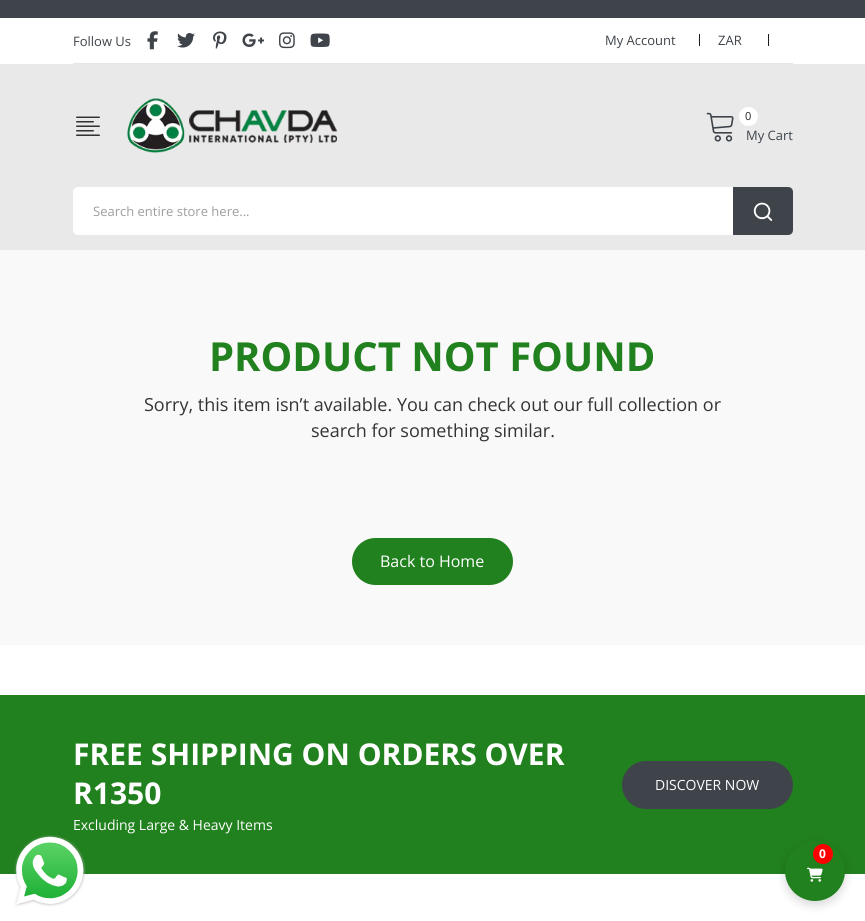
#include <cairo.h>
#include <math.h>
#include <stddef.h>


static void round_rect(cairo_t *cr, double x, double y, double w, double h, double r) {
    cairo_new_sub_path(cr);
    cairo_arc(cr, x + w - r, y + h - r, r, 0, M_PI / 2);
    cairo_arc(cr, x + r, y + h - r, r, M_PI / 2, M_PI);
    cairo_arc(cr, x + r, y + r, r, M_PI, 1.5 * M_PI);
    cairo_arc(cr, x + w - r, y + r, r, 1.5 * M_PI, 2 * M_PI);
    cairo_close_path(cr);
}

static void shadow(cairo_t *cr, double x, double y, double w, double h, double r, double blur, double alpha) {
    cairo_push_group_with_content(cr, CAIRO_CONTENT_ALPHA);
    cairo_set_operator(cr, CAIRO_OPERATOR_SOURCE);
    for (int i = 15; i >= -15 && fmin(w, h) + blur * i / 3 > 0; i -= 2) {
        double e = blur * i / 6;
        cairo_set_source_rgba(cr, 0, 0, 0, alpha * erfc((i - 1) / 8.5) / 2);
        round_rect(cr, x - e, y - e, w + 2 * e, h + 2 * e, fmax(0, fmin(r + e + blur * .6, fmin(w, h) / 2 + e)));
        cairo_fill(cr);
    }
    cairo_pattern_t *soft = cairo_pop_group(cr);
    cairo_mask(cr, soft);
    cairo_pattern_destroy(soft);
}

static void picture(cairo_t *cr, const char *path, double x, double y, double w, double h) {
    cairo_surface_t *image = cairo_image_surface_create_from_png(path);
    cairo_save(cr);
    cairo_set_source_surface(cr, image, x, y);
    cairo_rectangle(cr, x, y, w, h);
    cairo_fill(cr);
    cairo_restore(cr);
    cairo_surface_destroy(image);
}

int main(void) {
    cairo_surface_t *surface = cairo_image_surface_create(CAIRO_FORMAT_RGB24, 865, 921);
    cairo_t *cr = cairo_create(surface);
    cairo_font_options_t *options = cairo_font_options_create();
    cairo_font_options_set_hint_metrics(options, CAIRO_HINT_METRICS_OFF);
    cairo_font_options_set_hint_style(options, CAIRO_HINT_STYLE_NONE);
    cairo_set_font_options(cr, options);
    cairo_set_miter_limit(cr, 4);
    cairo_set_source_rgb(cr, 1, 1, 1);
    cairo_paint(cr);
    cairo_set_source_rgb(cr, 0.243, 0.267, 0.29);
    cairo_rectangle(cr, 0, 0, 865, 18);
    cairo_fill(cr);
    cairo_set_source_rgb(cr, 0.902, 0.902, 0.902);
    cairo_rectangle(cr, 73, 63, 720, 1);
    cairo_fill(cr);
    cairo_select_font_face(cr, "Open Sans", CAIRO_FONT_SLANT_NORMAL, CAIRO_FONT_WEIGHT_NORMAL);
    cairo_set_font_size(cr, 13);
    cairo_set_source_rgb(cr, 0.243, 0.267, 0.29);
    cairo_move_to(cr, 73, 46);
    cairo_show_text(cr, "Follow Us");
    picture(cr, "img1.png", 147, 31, 11, 19);
    picture(cr, "img2.png", 177, 33, 18, 15);
    picture(cr, "img3.png", 213, 31, 14, 18);
    picture(cr, "img4.png", 242, 33, 23, 14);
    picture(cr, "img5.png", 279, 32, 16, 17);
    picture(cr, "img6.png", 310, 33, 20, 14);
    cairo_move_to(cr, 605, 45);
    cairo_show_text(cr, "My Account");
    cairo_set_source_rgb(cr, 0.106, 0.106, 0.106);
    cairo_rectangle(cr, 699, 34, 1, 12);
    cairo_fill(cr);
    cairo_set_source_rgb(cr, 0.243, 0.267, 0.29);
    cairo_move_to(cr, 718, 45);
    cairo_show_text(cr, "ZAR");
    cairo_set_source_rgb(cr, 0.106, 0.106, 0.106);
    cairo_rectangle(cr, 768, 34, 1, 12);
    cairo_fill(cr);
    cairo_set_source_rgb(cr, 0.914, 0.914, 0.914);
    cairo_rectangle(cr, 0, 64, 865, 186);
    cairo_fill(cr);
    picture(cr, "img7.png", 76, 116, 24, 20);
    picture(cr, "img8.png", 127, 98, 210, 55);
    picture(cr, "img9.png", 706, 112, 28, 30);
    cairo_set_source_rgb(cr, 1, 1, 1);
    cairo_arc(cr, 748.5, 116.5, 9.5, 0, 2 * M_PI);
    cairo_fill(cr);
    cairo_set_font_size(cr, 11);
    cairo_set_source_rgb(cr, 0.133, 0.133, 0.133);
    cairo_move_to(cr, 745, 120);
    cairo_show_text(cr, "0");
    cairo_set_font_size(cr, 13);
    cairo_set_source_rgb(cr, 0.243, 0.267, 0.29);
    cairo_move_to(cr, 746, 140);
    cairo_show_text(cr, "My Cart");
    cairo_set_source_rgb(cr, 1, 1, 1);
    round_rect(cr, 73, 187, 720, 48, 5);
    cairo_fill(cr);
    cairo_set_source_rgb(cr, 0.62, 0.62, 0.62);
    cairo_move_to(cr, 93, 216);
    cairo_show_text(cr, "Search entire store here...");
    cairo_set_source_rgb(cr, 0.243, 0.267, 0.29);
    cairo_new_path(cr);
    cairo_move_to(cr, 733, 187);
    cairo_line_to(cr, 788, 187);
    cairo_curve_to(cr, 791, 187, 793, 189, 793, 192);
    cairo_line_to(cr, 793, 230);
    cairo_curve_to(cr, 793, 233, 791, 235, 788, 235);
    cairo_line_to(cr, 733, 235);
    cairo_close_path(cr);
    cairo_fill(cr);
    picture(cr, "img10.png", 753, 202, 20, 19);
    cairo_set_source_rgb(cr, 0.973, 0.973, 0.973);
    cairo_rectangle(cr, 0, 250, 865, 395);
    cairo_fill(cr);
    cairo_select_font_face(cr, "Open Sans", CAIRO_FONT_SLANT_NORMAL, CAIRO_FONT_WEIGHT_BOLD);
    cairo_set_font_size(cr, 40);
    cairo_set_source_rgb(cr, 0.129, 0.506, 0.118);
    cairo_move_to(cr, 209, 371);
    cairo_show_text(cr, "PRODUCT NOT FOUND");
    cairo_select_font_face(cr, "Open Sans", CAIRO_FONT_SLANT_NORMAL, CAIRO_FONT_WEIGHT_NORMAL);
    cairo_set_font_size(cr, 18);
    cairo_set_source_rgb(cr, 0.2, 0.2, 0.2);
    cairo_move_to(cr, 144, 411);
    cairo_show_text(cr, "Sorry, this item isn’t available. You can check out our full collection or");
    cairo_move_to(cr, 311, 437);
    cairo_show_text(cr, "search for something similar.");
    cairo_set_source_rgb(cr, 0.129, 0.506, 0.118);
    round_rect(cr, 352, 538, 161, 47, 23.5);
    cairo_fill(cr);
    cairo_set_font_size(cr, 16);
    cairo_set_source_rgb(cr, 1, 1, 1);
    cairo_move_to(cr, 380, 567);
    cairo_show_text(cr, "Back to Home");
    cairo_set_source_rgb(cr, 0.129, 0.506, 0.118);
    cairo_rectangle(cr, 0, 695, 865, 179);
    cairo_fill(cr);
    cairo_select_font_face(cr, "Open Sans", CAIRO_FONT_SLANT_NORMAL, CAIRO_FONT_WEIGHT_BOLD);
    cairo_set_font_size(cr, 30);
    cairo_set_source_rgb(cr, 1, 1, 1);
    cairo_move_to(cr, 73, 765);
    cairo_show_text(cr, "FREE SHIPPING ON ORDERS OVER");
    cairo_move_to(cr, 73, 804);
    cairo_show_text(cr, "R1350");
    cairo_select_font_face(cr, "Open Sans", CAIRO_FONT_SLANT_NORMAL, CAIRO_FONT_WEIGHT_NORMAL);
    cairo_set_font_size(cr, 14);
    cairo_move_to(cr, 73, 830);
    cairo_show_text(cr, "Excluding Large & Heavy Items");
    cairo_set_source_rgb(cr, 0.243, 0.267, 0.29);
    round_rect(cr, 622, 761, 171, 48, 24);
    cairo_fill(cr);
    cairo_set_source_rgb(cr, 1, 1, 1);
    cairo_move_to(cr, 655, 790);
    cairo_show_text(cr, "DISCOVER NOW");
    cairo_set_source_rgb(cr, 0, 0, 0);
    shadow(cr, 785, 845, 60, 60, 30, 5, 0.15);
    cairo_set_source_rgb(cr, 0.129, 0.506, 0.118);
    cairo_arc(cr, 815, 871, 30, 0, 2 * M_PI);
    cairo_fill(cr);
    cairo_set_source_rgb(cr, 1, 0, 0);
    cairo_arc(cr, 823, 854, 10, 0, 2 * M_PI);
    cairo_fill(cr);
    cairo_select_font_face(cr, "Open Sans", CAIRO_FONT_SLANT_NORMAL, CAIRO_FONT_WEIGHT_BOLD);
    cairo_set_font_size(cr, 12);
    cairo_set_source_rgb(cr, 1, 1, 1);
    cairo_move_to(cr, 819, 858);
    cairo_show_text(cr, "0");
    picture(cr, "img11.png", 807, 867, 16, 15);
    picture(cr, "img12.png", 14, 835, 72, 72);
    cairo_surface_write_to_png(surface, "page.png");
    cairo_font_options_destroy(options);
    cairo_destroy(cr);
    cairo_surface_destroy(surface);
    return 0;
}
